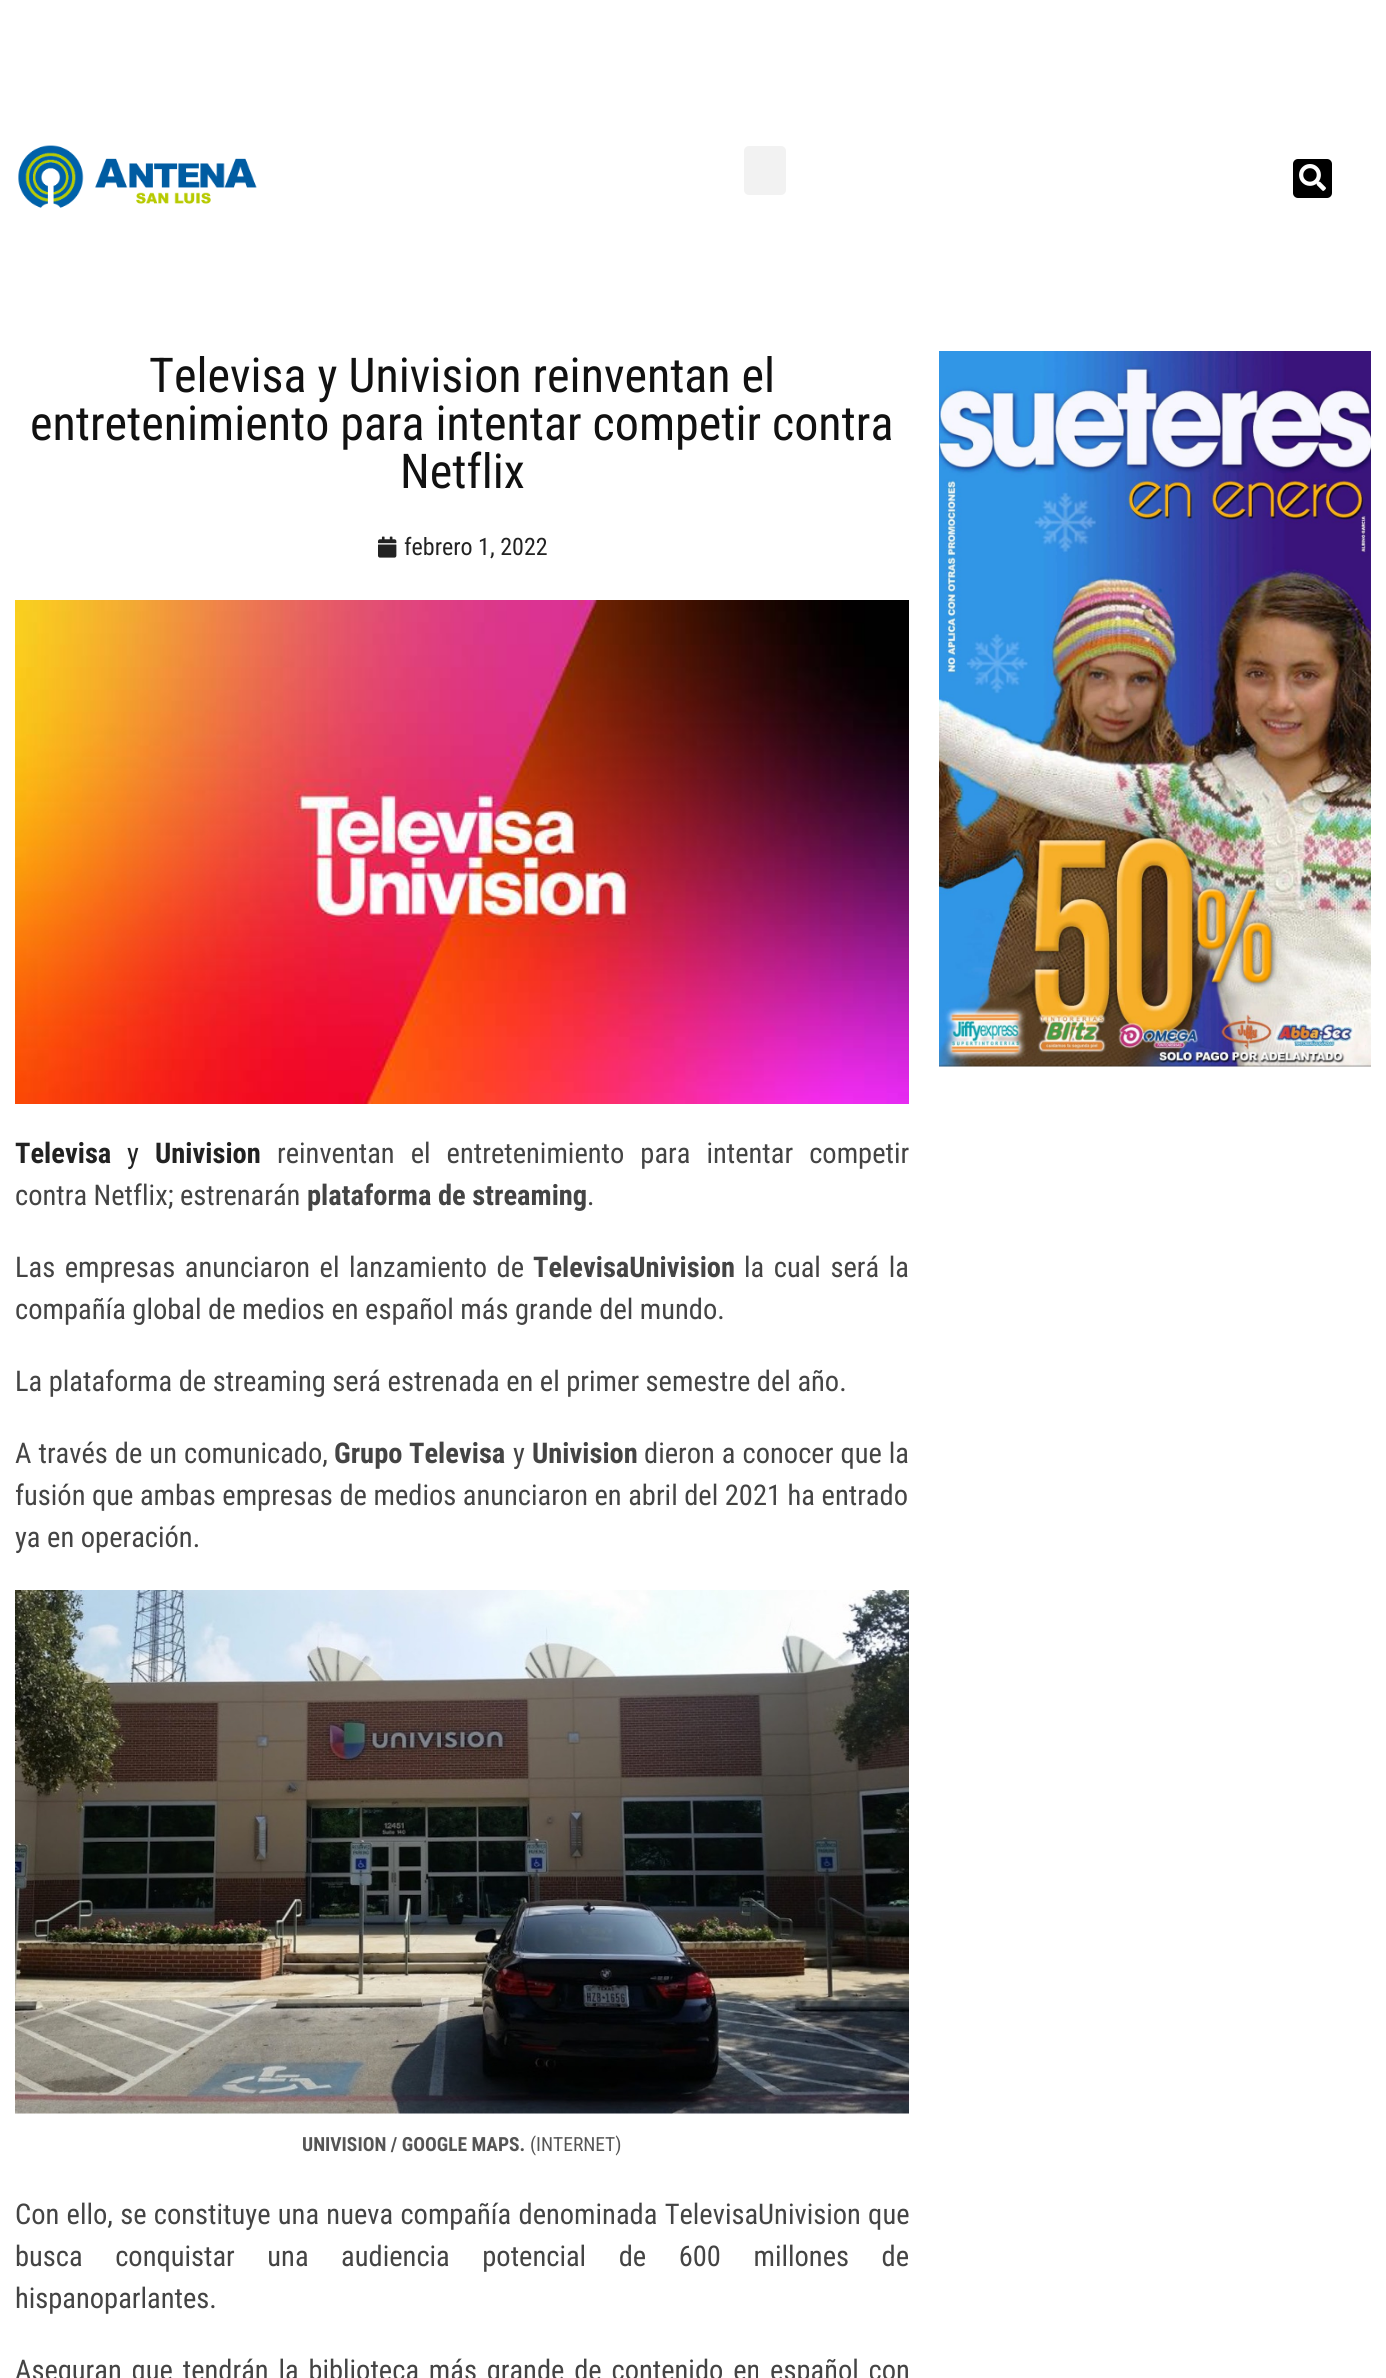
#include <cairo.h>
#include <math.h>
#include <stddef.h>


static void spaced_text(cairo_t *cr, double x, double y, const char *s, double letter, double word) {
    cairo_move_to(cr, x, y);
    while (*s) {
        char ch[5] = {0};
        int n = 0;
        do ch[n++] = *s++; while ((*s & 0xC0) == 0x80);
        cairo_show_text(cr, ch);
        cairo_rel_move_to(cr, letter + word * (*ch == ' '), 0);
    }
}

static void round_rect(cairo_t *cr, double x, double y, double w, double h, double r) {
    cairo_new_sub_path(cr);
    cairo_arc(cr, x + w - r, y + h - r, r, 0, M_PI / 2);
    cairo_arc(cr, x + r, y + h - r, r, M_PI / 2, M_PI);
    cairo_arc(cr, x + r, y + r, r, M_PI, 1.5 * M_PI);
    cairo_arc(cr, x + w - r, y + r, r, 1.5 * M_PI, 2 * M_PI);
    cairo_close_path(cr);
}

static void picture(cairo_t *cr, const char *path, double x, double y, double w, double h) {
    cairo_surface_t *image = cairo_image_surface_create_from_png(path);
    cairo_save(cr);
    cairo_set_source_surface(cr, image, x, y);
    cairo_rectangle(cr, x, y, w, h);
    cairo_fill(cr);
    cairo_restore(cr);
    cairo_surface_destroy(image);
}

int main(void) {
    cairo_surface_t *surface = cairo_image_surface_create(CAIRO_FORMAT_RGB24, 1386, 2378);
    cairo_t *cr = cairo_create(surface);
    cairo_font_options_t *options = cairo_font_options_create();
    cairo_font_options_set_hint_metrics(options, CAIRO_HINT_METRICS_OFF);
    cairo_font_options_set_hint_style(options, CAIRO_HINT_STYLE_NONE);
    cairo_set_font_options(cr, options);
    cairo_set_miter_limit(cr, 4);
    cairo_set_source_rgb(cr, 1, 1, 1);
    cairo_paint(cr);
    picture(cr, "img1.png", 18, 145, 239, 63);
    cairo_set_source_rgb(cr, 0.949, 0.949, 0.949);
    round_rect(cr, 744, 146, 42, 49, 5);
    cairo_fill(cr);
    cairo_set_source_rgb(cr, 0, 0, 0);
    round_rect(cr, 1293, 159, 39, 39, 5);
    cairo_fill(cr);
    picture(cr, "img2.png", 1299, 164, 27, 27);
    cairo_select_font_face(cr, "Roboto Condensed", CAIRO_FONT_SLANT_NORMAL, CAIRO_FONT_WEIGHT_NORMAL);
    cairo_set_font_size(cr, 48);
    cairo_set_source_rgb(cr, 0.067, 0.067, 0.067);
    cairo_move_to(cr, 149, 392);
    cairo_show_text(cr, "Televisa y Univision reinventan el");
    cairo_move_to(cr, 30, 440);
    cairo_show_text(cr, "entretenimiento para intentar competir contra");
    cairo_move_to(cr, 400, 488);
    cairo_show_text(cr, "Netflix");
    picture(cr, "img3.png", 378, 536, 19, 22);
    cairo_set_font_size(cr, 24);
    cairo_set_source_rgb(cr, 0.133, 0.133, 0.133);
    cairo_move_to(cr, 404, 555);
    cairo_show_text(cr, "febrero 1, 2022");
    picture(cr, "img4.png", 15, 600, 894, 504);
    cairo_select_font_face(cr, "Roboto Condensed", CAIRO_FONT_SLANT_NORMAL, CAIRO_FONT_WEIGHT_BOLD);
    cairo_set_font_size(cr, 28.5);
    cairo_move_to(cr, 15, 1163);
    cairo_show_text(cr, "Televisa");
    cairo_select_font_face(cr, "Roboto Condensed", CAIRO_FONT_SLANT_NORMAL, CAIRO_FONT_WEIGHT_NORMAL);
    cairo_move_to(cr, 127, 1163);
    cairo_show_text(cr, "y");
    cairo_select_font_face(cr, "Roboto Condensed", CAIRO_FONT_SLANT_NORMAL, CAIRO_FONT_WEIGHT_BOLD);
    cairo_move_to(cr, 155, 1163);
    cairo_show_text(cr, "Univision");
    cairo_select_font_face(cr, "Roboto Condensed", CAIRO_FONT_SLANT_NORMAL, CAIRO_FONT_WEIGHT_NORMAL);
    cairo_set_source_rgb(cr, 0.267, 0.267, 0.267);
    spaced_text(cr, 277, 1163, "reinventan el entretenimiento para intentar competir", 0, 9.5);
    cairo_move_to(cr, 15, 1205);
    cairo_show_text(cr, "contra Netflix; estrenarán");
    cairo_select_font_face(cr, "Roboto Condensed", CAIRO_FONT_SLANT_NORMAL, CAIRO_FONT_WEIGHT_BOLD);
    cairo_move_to(cr, 307, 1205);
    cairo_show_text(cr, "plataforma de streaming");
    cairo_select_font_face(cr, "Roboto Condensed", CAIRO_FONT_SLANT_NORMAL, CAIRO_FONT_WEIGHT_NORMAL);
    cairo_move_to(cr, 587, 1205);
    cairo_show_text(cr, ".");
    spaced_text(cr, 15, 1277, "Las empresas anunciaron el lanzamiento de", 0, 3);
    cairo_select_font_face(cr, "Roboto Condensed", CAIRO_FONT_SLANT_NORMAL, CAIRO_FONT_WEIGHT_BOLD);
    cairo_move_to(cr, 533, 1277);
    cairo_show_text(cr, "TelevisaUnivision");
    cairo_select_font_face(cr, "Roboto Condensed", CAIRO_FONT_SLANT_NORMAL, CAIRO_FONT_WEIGHT_NORMAL);
    spaced_text(cr, 744, 1277, "la cual será la", 0, 3);
    cairo_move_to(cr, 15, 1319);
    cairo_show_text(cr, "compañía global de medios en español más grande del mundo.");
    cairo_move_to(cr, 15, 1391);
    cairo_show_text(cr, "La plataforma de streaming será estrenada en el primer semestre del año.");
    spaced_text(cr, 15, 1463, "A través de un comunicado,", 0, 0.5);
    cairo_select_font_face(cr, "Roboto Condensed", CAIRO_FONT_SLANT_NORMAL, CAIRO_FONT_WEIGHT_BOLD);
    cairo_move_to(cr, 334, 1463);
    cairo_show_text(cr, "Grupo Televisa");
    cairo_select_font_face(cr, "Roboto Condensed", CAIRO_FONT_SLANT_NORMAL, CAIRO_FONT_WEIGHT_NORMAL);
    cairo_move_to(cr, 513, 1463);
    cairo_show_text(cr, "y");
    cairo_select_font_face(cr, "Roboto Condensed", CAIRO_FONT_SLANT_NORMAL, CAIRO_FONT_WEIGHT_BOLD);
    cairo_move_to(cr, 532, 1463);
    cairo_show_text(cr, "Univision");
    cairo_select_font_face(cr, "Roboto Condensed", CAIRO_FONT_SLANT_NORMAL, CAIRO_FONT_WEIGHT_NORMAL);
    spaced_text(cr, 644, 1463, "dieron a conocer que la", 0, 0.5);
    cairo_move_to(cr, 15, 1505);
    cairo_show_text(cr, "fusión que ambas empresas de medios anunciaron en abril del 2021 ha entrado");
    cairo_move_to(cr, 15, 1547);
    cairo_show_text(cr, "ya en operación.");
    picture(cr, "img5.png", 15, 1590, 894, 524);
    cairo_select_font_face(cr, "Roboto Condensed", CAIRO_FONT_SLANT_NORMAL, CAIRO_FONT_WEIGHT_BOLD);
    cairo_set_font_size(cr, 19.5);
    cairo_set_source_rgb(cr, 0.333, 0.333, 0.333);
    cairo_move_to(cr, 302, 2151);
    cairo_show_text(cr, "UNIVISION / GOOGLE MAPS.");
    cairo_select_font_face(cr, "Roboto Condensed", CAIRO_FONT_SLANT_NORMAL, CAIRO_FONT_WEIGHT_NORMAL);
    cairo_move_to(cr, 530, 2151);
    cairo_show_text(cr, "(INTERNET)");
    cairo_set_font_size(cr, 28.5);
    cairo_set_source_rgb(cr, 0.267, 0.267, 0.267);
    spaced_text(cr, 15, 2224, "Con ello, se constituye una nueva compañía denominada TelevisaUnivision que", 0, 0.75);
    spaced_text(cr, 15, 2266, "busca conquistar una audiencia potencial de 600 millones de", 0, 26);
    cairo_move_to(cr, 15, 2308);
    cairo_show_text(cr, "hispanoparlantes.");
    spaced_text(cr, 15, 2380, "Aseguran que tendrán la biblioteca más grande de contenido en español con", 0, 3.25);
    picture(cr, "img6.png", 939, 351, 432, 716);
    cairo_surface_write_to_png(surface, "page.png");
    cairo_font_options_destroy(options);
    cairo_destroy(cr);
    cairo_surface_destroy(surface);
    return 0;
}
